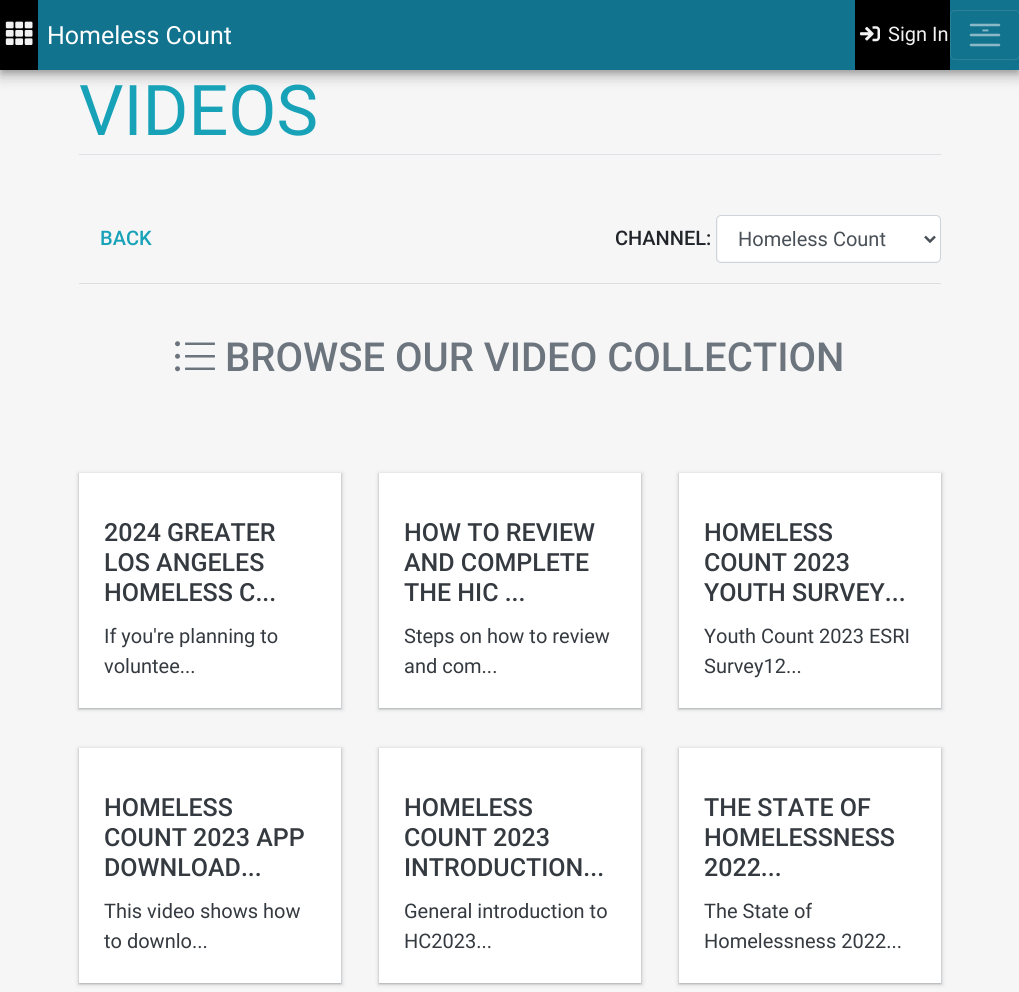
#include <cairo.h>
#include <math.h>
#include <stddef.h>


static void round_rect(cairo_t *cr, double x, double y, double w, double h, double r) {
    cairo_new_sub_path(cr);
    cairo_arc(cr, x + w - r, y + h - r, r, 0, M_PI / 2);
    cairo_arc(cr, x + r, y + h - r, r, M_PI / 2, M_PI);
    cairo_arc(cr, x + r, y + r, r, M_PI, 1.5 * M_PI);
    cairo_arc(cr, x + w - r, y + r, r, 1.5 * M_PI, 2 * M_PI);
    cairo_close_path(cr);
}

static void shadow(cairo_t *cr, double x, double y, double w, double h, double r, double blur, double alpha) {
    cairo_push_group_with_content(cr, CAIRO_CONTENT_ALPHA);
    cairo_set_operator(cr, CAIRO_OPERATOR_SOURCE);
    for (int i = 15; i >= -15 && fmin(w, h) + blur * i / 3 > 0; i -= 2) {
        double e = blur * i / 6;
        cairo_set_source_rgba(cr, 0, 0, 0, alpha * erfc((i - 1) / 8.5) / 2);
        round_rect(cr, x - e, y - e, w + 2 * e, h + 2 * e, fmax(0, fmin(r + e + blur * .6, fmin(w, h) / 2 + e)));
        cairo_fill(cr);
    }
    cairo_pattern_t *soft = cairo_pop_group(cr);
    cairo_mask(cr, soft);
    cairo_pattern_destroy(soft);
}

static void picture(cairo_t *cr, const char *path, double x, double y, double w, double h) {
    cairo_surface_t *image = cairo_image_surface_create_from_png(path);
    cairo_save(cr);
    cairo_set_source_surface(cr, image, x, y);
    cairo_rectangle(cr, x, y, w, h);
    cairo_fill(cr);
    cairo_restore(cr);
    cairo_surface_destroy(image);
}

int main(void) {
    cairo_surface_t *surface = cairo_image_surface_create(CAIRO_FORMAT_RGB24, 1019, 992);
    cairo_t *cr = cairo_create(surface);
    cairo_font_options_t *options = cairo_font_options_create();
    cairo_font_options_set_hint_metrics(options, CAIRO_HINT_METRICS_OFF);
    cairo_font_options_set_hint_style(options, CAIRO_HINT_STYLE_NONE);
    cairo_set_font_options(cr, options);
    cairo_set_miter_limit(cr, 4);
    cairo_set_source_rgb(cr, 0.961, 0.961, 0.965);
    cairo_paint(cr);
    cairo_set_source_rgb(cr, 0, 0, 0);
    shadow(cr, 1, 5, 1018, 68, 0, 3, 0.2);
    shadow(cr, 0, 1, 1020, 70, 0, 11, 0.12);
    shadow(cr, 0, 8, 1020, 70, 0, 6, 0.14);
    cairo_set_source_rgb(cr, 0.071, 0.451, 0.557);
    cairo_rectangle(cr, 38, 0, 981, 70);
    cairo_fill(cr);
    cairo_set_source_rgb(cr, 0, 0, 0);
    cairo_rectangle(cr, 0, 0, 38, 70);
    cairo_fill(cr);
    picture(cr, "img1.png", 5, 21, 28, 24);
    cairo_select_font_face(cr, "Roboto", CAIRO_FONT_SLANT_NORMAL, CAIRO_FONT_WEIGHT_NORMAL);
    cairo_set_font_size(cr, 25);
    cairo_set_source_rgb(cr, 1, 1, 1);
    cairo_move_to(cr, 47, 44);
    cairo_show_text(cr, "Homeless Count");
    cairo_set_source_rgb(cr, 0, 0, 0);
    cairo_rectangle(cr, 855, 0, 95, 70);
    cairo_fill(cr);
    picture(cr, "img2.png", 860, 26, 20, 16);
    cairo_set_font_size(cr, 20);
    cairo_set_source_rgb(cr, 0.949, 0.949, 0.949);
    cairo_move_to(cr, 888, 41);
    cairo_show_text(cr, "Sign In");
    round_rect(cr, 950.5, 10.5, 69, 49, 4.5);
    cairo_set_source_rgb(cr, 0.165, 0.506, 0.6);
    cairo_set_line_width(cr, 1);
    cairo_stroke(cr);
    cairo_new_path(cr);
    cairo_move_to(cr, 971, 25);
    cairo_line_to(cr, 999, 25);
    cairo_move_to(cr, 971, 35);
    cairo_line_to(cr, 999, 35);
    cairo_move_to(cr, 971, 45);
    cairo_line_to(cr, 999, 45);
    cairo_set_source_rgb(cr, 0.537, 0.725, 0.78);
    cairo_set_line_width(cr, 2.5);
    cairo_set_line_cap(cr, CAIRO_LINE_CAP_ROUND);
    cairo_stroke(cr);
    cairo_set_font_size(cr, 25);
    cairo_move_to(cr, 982, 38);
    cairo_show_text(cr, "-");
    cairo_set_source_rgb(cr, 0.871, 0.886, 0.902);
    cairo_rectangle(cr, 79, 154, 862, 1);
    cairo_fill(cr);
    cairo_set_font_size(cr, 70);
    cairo_set_source_rgb(cr, 0.09, 0.635, 0.722);
    cairo_move_to(cr, 79, 135);
    cairo_show_text(cr, "VIDEOS");
    cairo_select_font_face(cr, "Roboto Medium", CAIRO_FONT_SLANT_NORMAL, CAIRO_FONT_WEIGHT_NORMAL);
    cairo_set_font_size(cr, 20);
    cairo_move_to(cr, 100, 245);
    cairo_show_text(cr, "BACK");
    cairo_set_source_rgb(cr, 0.129, 0.145, 0.161);
    cairo_move_to(cr, 615, 245);
    cairo_show_text(cr, "CHANNEL:");
    cairo_set_source_rgb(cr, 1, 1, 1);
    round_rect(cr, 718, 216, 222, 45, 4);
    cairo_fill(cr);
    round_rect(cr, 716.5, 215.5, 224, 47, 4.5);
    cairo_set_source_rgb(cr, 0.808, 0.831, 0.855);
    cairo_set_line_width(cr, 1);
    cairo_set_line_cap(cr, CAIRO_LINE_CAP_BUTT);
    cairo_stroke(cr);
    cairo_new_path(cr);
    cairo_move_to(cr, 925, 236.5);
    cairo_line_to(cr, 930, 241.5);
    cairo_line_to(cr, 935, 236.5);
    cairo_set_source_rgb(cr, 0.286, 0.314, 0.341);
    cairo_set_line_width(cr, 2.5);
    cairo_stroke(cr);
    cairo_select_font_face(cr, "Roboto", CAIRO_FONT_SLANT_NORMAL, CAIRO_FONT_WEIGHT_NORMAL);
    cairo_move_to(cr, 738, 246);
    cairo_show_text(cr, "Homeless Count");
    cairo_set_source_rgb(cr, 0.867, 0.867, 0.867);
    cairo_rectangle(cr, 79, 283, 862, 1);
    cairo_fill(cr);
    picture(cr, "img3.png", 175, 341, 40, 31);
    cairo_select_font_face(cr, "Roboto Medium", CAIRO_FONT_SLANT_NORMAL, CAIRO_FONT_WEIGHT_NORMAL);
    cairo_set_font_size(cr, 40);
    cairo_set_source_rgb(cr, 0.424, 0.459, 0.49);
    cairo_move_to(cr, 225, 371);
    cairo_show_text(cr, "BROWSE OUR VIDEO COLLECTION");
    cairo_set_source_rgb(cr, 0.235, 0.251, 0.263);
    shadow(cr, 78, 473, 265, 237, 0, 2, 0.15);
    shadow(cr, 79, 474, 262, 235, 0, 1, 0.3);
    cairo_set_source_rgb(cr, 1, 1, 1);
    cairo_rectangle(cr, 79, 473, 262, 235);
    cairo_fill(cr);
    cairo_set_font_size(cr, 25);
    cairo_set_source_rgb(cr, 0.204, 0.227, 0.251);
    cairo_move_to(cr, 104, 541);
    cairo_show_text(cr, "2024 GREATER");
    cairo_move_to(cr, 104, 571);
    cairo_show_text(cr, "LOS ANGELES");
    cairo_move_to(cr, 104, 601);
    cairo_show_text(cr, "HOMELESS C...");
    cairo_select_font_face(cr, "Roboto", CAIRO_FONT_SLANT_NORMAL, CAIRO_FONT_WEIGHT_NORMAL);
    cairo_set_font_size(cr, 20);
    cairo_move_to(cr, 104, 643);
    cairo_show_text(cr, "If you're planning to");
    cairo_move_to(cr, 104, 673);
    cairo_show_text(cr, "voluntee...");
    cairo_set_source_rgb(cr, 0.235, 0.251, 0.263);
    shadow(cr, 378, 473, 265, 237, 0, 2, 0.15);
    shadow(cr, 379, 474, 262, 235, 0, 1, 0.3);
    cairo_set_source_rgb(cr, 1, 1, 1);
    cairo_rectangle(cr, 379, 473, 262, 235);
    cairo_fill(cr);
    cairo_select_font_face(cr, "Roboto Medium", CAIRO_FONT_SLANT_NORMAL, CAIRO_FONT_WEIGHT_NORMAL);
    cairo_set_font_size(cr, 25);
    cairo_set_source_rgb(cr, 0.204, 0.227, 0.251);
    cairo_move_to(cr, 404, 541);
    cairo_show_text(cr, "HOW TO REVIEW");
    cairo_move_to(cr, 404, 571);
    cairo_show_text(cr, "AND COMPLETE");
    cairo_move_to(cr, 404, 601);
    cairo_show_text(cr, "THE HIC ...");
    cairo_select_font_face(cr, "Roboto", CAIRO_FONT_SLANT_NORMAL, CAIRO_FONT_WEIGHT_NORMAL);
    cairo_set_font_size(cr, 20);
    cairo_move_to(cr, 404, 643);
    cairo_show_text(cr, "Steps on how to review");
    cairo_move_to(cr, 404, 673);
    cairo_show_text(cr, "and com...");
    cairo_set_source_rgb(cr, 0.235, 0.251, 0.263);
    shadow(cr, 678, 473, 265, 237, 0, 2, 0.15);
    shadow(cr, 679, 474, 262, 235, 0, 1, 0.3);
    cairo_set_source_rgb(cr, 1, 1, 1);
    cairo_rectangle(cr, 679, 473, 262, 235);
    cairo_fill(cr);
    cairo_select_font_face(cr, "Roboto Medium", CAIRO_FONT_SLANT_NORMAL, CAIRO_FONT_WEIGHT_NORMAL);
    cairo_set_font_size(cr, 25);
    cairo_set_source_rgb(cr, 0.204, 0.227, 0.251);
    cairo_move_to(cr, 704, 541);
    cairo_show_text(cr, "HOMELESS");
    cairo_move_to(cr, 704, 571);
    cairo_show_text(cr, "COUNT 2023");
    cairo_move_to(cr, 704, 601);
    cairo_show_text(cr, "YOUTH SURVEY...");
    cairo_select_font_face(cr, "Roboto", CAIRO_FONT_SLANT_NORMAL, CAIRO_FONT_WEIGHT_NORMAL);
    cairo_set_font_size(cr, 20);
    cairo_move_to(cr, 704, 643);
    cairo_show_text(cr, "Youth Count 2023 ESRI");
    cairo_move_to(cr, 704, 673);
    cairo_show_text(cr, "Survey12...");
    cairo_set_source_rgb(cr, 0.235, 0.251, 0.263);
    shadow(cr, 78, 748, 265, 237, 0, 2, 0.15);
    shadow(cr, 79, 749, 262, 235, 0, 1, 0.3);
    cairo_set_source_rgb(cr, 1, 1, 1);
    cairo_rectangle(cr, 79, 748, 262, 235);
    cairo_fill(cr);
    cairo_select_font_face(cr, "Roboto Medium", CAIRO_FONT_SLANT_NORMAL, CAIRO_FONT_WEIGHT_NORMAL);
    cairo_set_font_size(cr, 25);
    cairo_set_source_rgb(cr, 0.204, 0.227, 0.251);
    cairo_move_to(cr, 104, 816);
    cairo_show_text(cr, "HOMELESS");
    cairo_move_to(cr, 104, 846);
    cairo_show_text(cr, "COUNT 2023 APP");
    cairo_move_to(cr, 104, 876);
    cairo_show_text(cr, "DOWNLOAD...");
    cairo_select_font_face(cr, "Roboto", CAIRO_FONT_SLANT_NORMAL, CAIRO_FONT_WEIGHT_NORMAL);
    cairo_set_font_size(cr, 20);
    cairo_move_to(cr, 104, 918);
    cairo_show_text(cr, "This video shows how");
    cairo_move_to(cr, 104, 948);
    cairo_show_text(cr, "to downlo...");
    cairo_set_source_rgb(cr, 0.235, 0.251, 0.263);
    shadow(cr, 378, 748, 265, 237, 0, 2, 0.15);
    shadow(cr, 379, 749, 262, 235, 0, 1, 0.3);
    cairo_set_source_rgb(cr, 1, 1, 1);
    cairo_rectangle(cr, 379, 748, 262, 235);
    cairo_fill(cr);
    cairo_select_font_face(cr, "Roboto Medium", CAIRO_FONT_SLANT_NORMAL, CAIRO_FONT_WEIGHT_NORMAL);
    cairo_set_font_size(cr, 25);
    cairo_set_source_rgb(cr, 0.204, 0.227, 0.251);
    cairo_move_to(cr, 404, 816);
    cairo_show_text(cr, "HOMELESS");
    cairo_move_to(cr, 404, 846);
    cairo_show_text(cr, "COUNT 2023");
    cairo_move_to(cr, 404, 876);
    cairo_show_text(cr, "INTRODUCTION...");
    cairo_select_font_face(cr, "Roboto", CAIRO_FONT_SLANT_NORMAL, CAIRO_FONT_WEIGHT_NORMAL);
    cairo_set_font_size(cr, 20);
    cairo_move_to(cr, 404, 918);
    cairo_show_text(cr, "General introduction to");
    cairo_move_to(cr, 404, 948);
    cairo_show_text(cr, "HC2023...");
    cairo_set_source_rgb(cr, 0.235, 0.251, 0.263);
    shadow(cr, 678, 748, 265, 237, 0, 2, 0.15);
    shadow(cr, 679, 749, 262, 235, 0, 1, 0.3);
    cairo_set_source_rgb(cr, 1, 1, 1);
    cairo_rectangle(cr, 679, 748, 262, 235);
    cairo_fill(cr);
    cairo_select_font_face(cr, "Roboto Medium", CAIRO_FONT_SLANT_NORMAL, CAIRO_FONT_WEIGHT_NORMAL);
    cairo_set_font_size(cr, 25);
    cairo_set_source_rgb(cr, 0.204, 0.227, 0.251);
    cairo_move_to(cr, 704, 816);
    cairo_show_text(cr, "THE STATE OF");
    cairo_move_to(cr, 704, 846);
    cairo_show_text(cr, "HOMELESSNESS");
    cairo_move_to(cr, 704, 876);
    cairo_show_text(cr, "2022...");
    cairo_select_font_face(cr, "Roboto", CAIRO_FONT_SLANT_NORMAL, CAIRO_FONT_WEIGHT_NORMAL);
    cairo_set_font_size(cr, 20);
    cairo_move_to(cr, 704, 918);
    cairo_show_text(cr, "The State of");
    cairo_move_to(cr, 704, 948);
    cairo_show_text(cr, "Homelessness 2022...");
    cairo_surface_write_to_png(surface, "page.png");
    cairo_font_options_destroy(options);
    cairo_destroy(cr);
    cairo_surface_destroy(surface);
    return 0;
}
